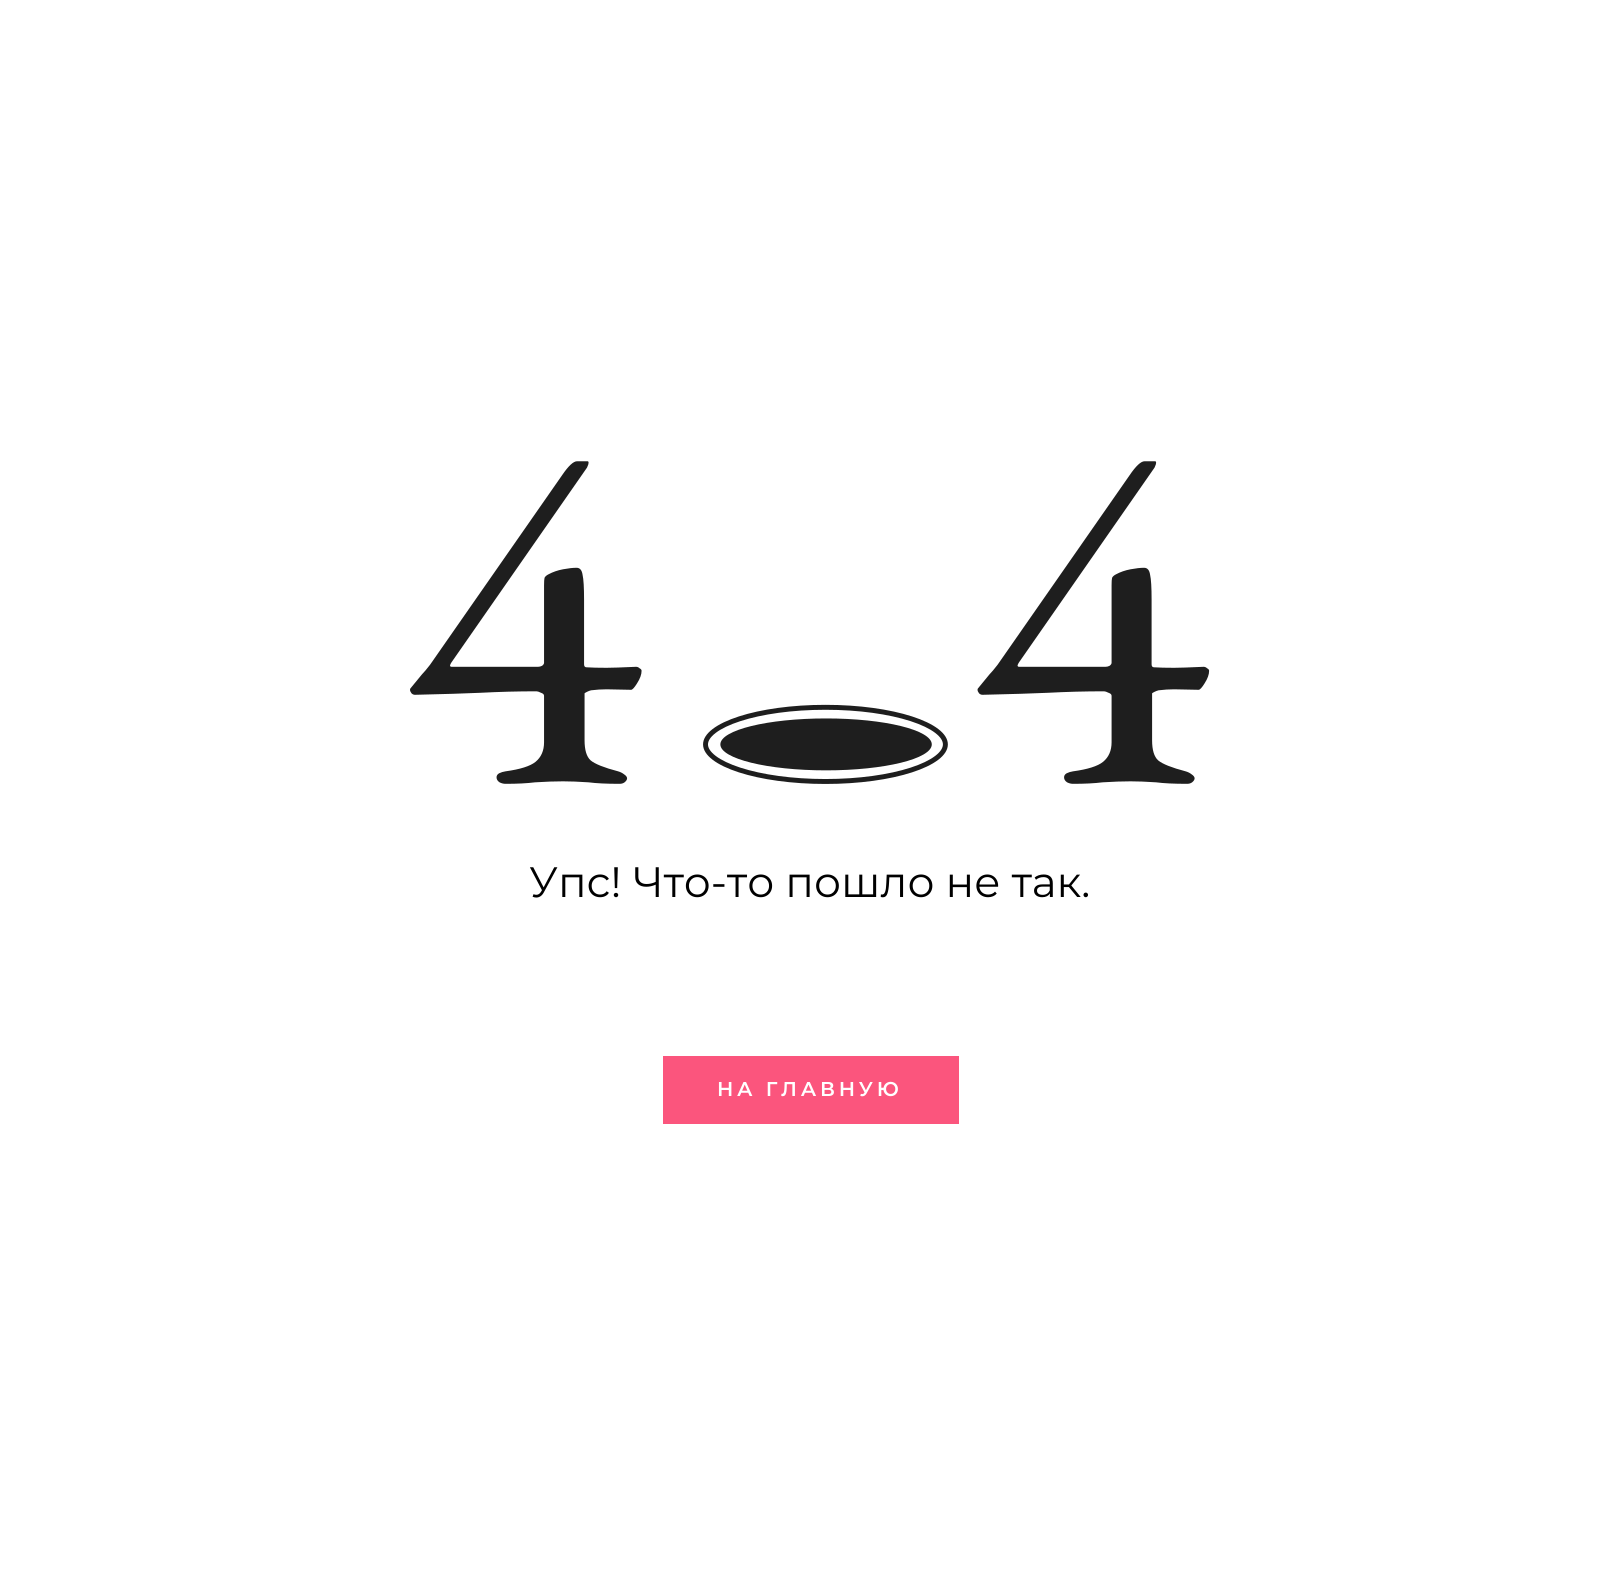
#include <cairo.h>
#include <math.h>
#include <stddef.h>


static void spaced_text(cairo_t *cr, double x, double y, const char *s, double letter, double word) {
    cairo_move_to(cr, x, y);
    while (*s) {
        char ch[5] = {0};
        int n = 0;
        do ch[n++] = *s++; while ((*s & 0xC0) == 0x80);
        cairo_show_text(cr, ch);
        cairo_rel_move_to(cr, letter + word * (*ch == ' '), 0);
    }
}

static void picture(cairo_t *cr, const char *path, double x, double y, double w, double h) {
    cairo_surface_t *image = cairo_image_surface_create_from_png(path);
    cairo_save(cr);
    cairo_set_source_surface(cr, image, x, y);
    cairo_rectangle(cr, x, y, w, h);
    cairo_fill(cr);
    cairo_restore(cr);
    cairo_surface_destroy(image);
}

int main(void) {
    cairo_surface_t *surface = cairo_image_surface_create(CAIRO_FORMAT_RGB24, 1620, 1584);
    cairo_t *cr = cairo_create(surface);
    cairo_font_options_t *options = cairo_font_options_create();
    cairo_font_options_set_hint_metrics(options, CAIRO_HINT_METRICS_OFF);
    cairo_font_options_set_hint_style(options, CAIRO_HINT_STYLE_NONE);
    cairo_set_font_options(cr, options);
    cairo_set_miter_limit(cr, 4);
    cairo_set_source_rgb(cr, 1, 1, 1);
    cairo_paint(cr);
    picture(cr, "img1.png", 410, 461, 800, 323);
    cairo_select_font_face(cr, "Montserrat", CAIRO_FONT_SLANT_NORMAL, CAIRO_FONT_WEIGHT_NORMAL);
    cairo_set_font_size(cr, 42.5);
    cairo_set_source_rgb(cr, 0, 0, 0);
    cairo_move_to(cr, 529, 897);
    cairo_show_text(cr, "Упс! Что-то пошло не так.");
    cairo_set_source_rgb(cr, 0.984, 0.333, 0.49);
    cairo_rectangle(cr, 663, 1056, 296, 68);
    cairo_fill(cr);
    cairo_select_font_face(cr, "Montserrat SemiBold", CAIRO_FONT_SLANT_NORMAL, CAIRO_FONT_WEIGHT_NORMAL);
    cairo_set_font_size(cr, 20);
    cairo_set_source_rgb(cr, 1, 1, 1);
    spaced_text(cr, 717, 1096, "НА ГЛАВНУЮ", 3.75, 0);
    cairo_surface_write_to_png(surface, "page.png");
    cairo_font_options_destroy(options);
    cairo_destroy(cr);
    cairo_surface_destroy(surface);
    return 0;
}
